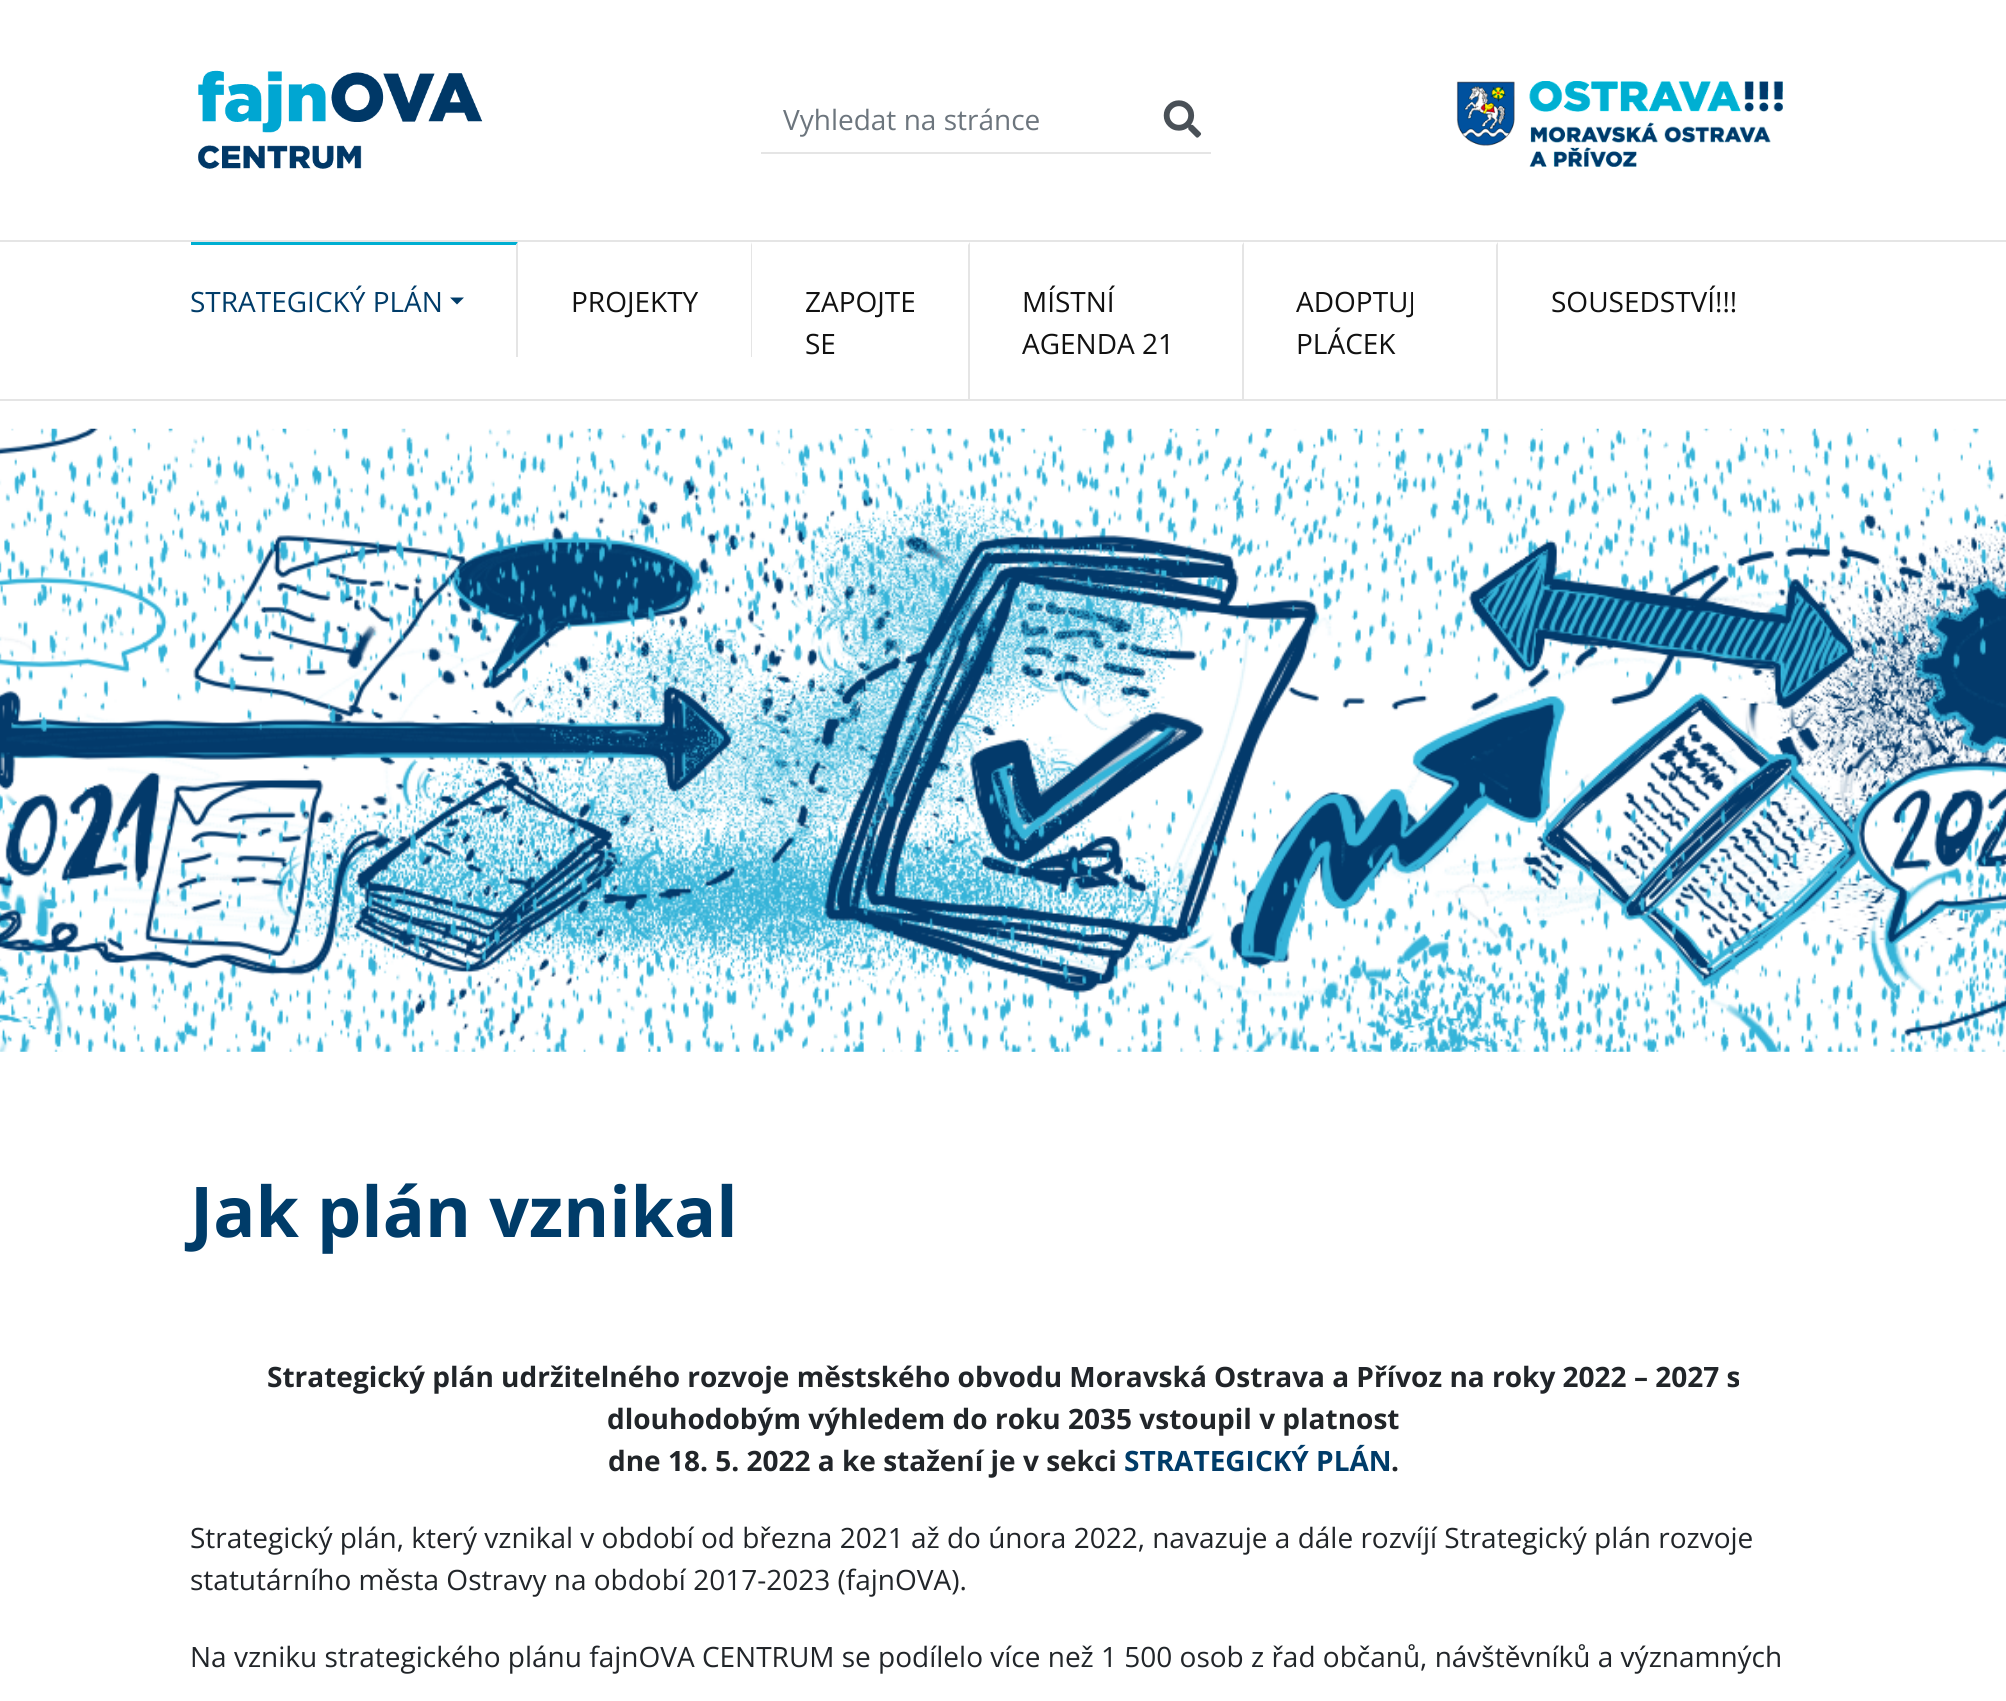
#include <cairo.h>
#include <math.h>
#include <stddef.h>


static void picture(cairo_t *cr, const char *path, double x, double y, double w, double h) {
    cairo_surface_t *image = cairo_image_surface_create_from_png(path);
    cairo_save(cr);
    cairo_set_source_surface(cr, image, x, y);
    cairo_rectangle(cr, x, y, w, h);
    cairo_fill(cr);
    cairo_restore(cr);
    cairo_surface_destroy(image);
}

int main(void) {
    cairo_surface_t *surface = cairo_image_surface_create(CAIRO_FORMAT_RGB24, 2006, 1701);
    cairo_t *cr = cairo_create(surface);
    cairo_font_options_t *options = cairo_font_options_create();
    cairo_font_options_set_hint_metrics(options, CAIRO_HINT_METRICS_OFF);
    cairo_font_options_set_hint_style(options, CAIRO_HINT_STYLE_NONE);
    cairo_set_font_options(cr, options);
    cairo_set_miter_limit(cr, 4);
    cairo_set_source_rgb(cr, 1, 1, 1);
    cairo_paint(cr);
    cairo_set_source_rgb(cr, 0.898, 0.898, 0.898);
    cairo_rectangle(cr, 0, 240, 2006, 2);
    cairo_fill(cr);
    picture(cr, "img1.png", 198, 70, 285, 99);
    cairo_rectangle(cr, 761, 152, 450, 2);
    cairo_fill(cr);
    picture(cr, "img2.png", 1163, 100, 39, 38);
    cairo_select_font_face(cr, "Open Sans", CAIRO_FONT_SLANT_NORMAL, CAIRO_FONT_WEIGHT_NORMAL);
    cairo_set_font_size(cr, 28);
    cairo_set_source_rgb(cr, 0.424, 0.459, 0.49);
    cairo_move_to(cr, 783, 130);
    cairo_show_text(cr, "Vyhledat na stránce");
    picture(cr, "img3.png", 1456, 81, 327, 86);
    cairo_set_source_rgb(cr, 0.898, 0.898, 0.898);
    cairo_rectangle(cr, 0, 399, 2006, 2);
    cairo_fill(cr);
    cairo_set_source_rgb(cr, 0, 0.686, 0.824);
    cairo_new_path(cr);
    cairo_move_to(cr, 191, 242);
    cairo_line_to(cr, 518, 242);
    cairo_line_to(cr, 516, 245);
    cairo_line_to(cr, 191, 245);
    cairo_close_path(cr);
    cairo_fill(cr);
    cairo_set_source_rgb(cr, 0.898, 0.898, 0.898);
    cairo_new_path(cr);
    cairo_move_to(cr, 518, 242);
    cairo_line_to(cr, 518, 357);
    cairo_line_to(cr, 516, 357);
    cairo_line_to(cr, 516, 245);
    cairo_close_path(cr);
    cairo_fill(cr);
    cairo_set_source_rgb(cr, 0, 0.235, 0.412);
    cairo_move_to(cr, 190, 312);
    cairo_show_text(cr, "STRATEGICKÝ PLÁN");
    cairo_new_path(cr);
    cairo_move_to(cr, 450, 297.5);
    cairo_line_to(cr, 464, 297.5);
    cairo_line_to(cr, 457, 304.5);
    cairo_close_path(cr);
    cairo_fill(cr);
    cairo_set_source_rgb(cr, 0.898, 0.898, 0.898);
    cairo_new_path(cr);
    cairo_move_to(cr, 752, 242);
    cairo_line_to(cr, 752, 357);
    cairo_line_to(cr, 751, 357);
    cairo_line_to(cr, 751, 245);
    cairo_close_path(cr);
    cairo_fill(cr);
    cairo_set_source_rgb(cr, 0.067, 0.067, 0.067);
    cairo_move_to(cr, 571, 312);
    cairo_show_text(cr, "PROJEKTY");
    cairo_set_source_rgb(cr, 0.898, 0.898, 0.898);
    cairo_new_path(cr);
    cairo_move_to(cr, 970, 242);
    cairo_line_to(cr, 970, 399);
    cairo_line_to(cr, 968, 399);
    cairo_line_to(cr, 968, 245);
    cairo_close_path(cr);
    cairo_fill(cr);
    cairo_set_source_rgb(cr, 0.067, 0.067, 0.067);
    cairo_move_to(cr, 805, 312);
    cairo_show_text(cr, "ZAPOJTE");
    cairo_move_to(cr, 805, 354);
    cairo_show_text(cr, "SE");
    cairo_set_source_rgb(cr, 0.898, 0.898, 0.898);
    cairo_new_path(cr);
    cairo_move_to(cr, 1244, 242);
    cairo_line_to(cr, 1244, 399);
    cairo_line_to(cr, 1242, 399);
    cairo_line_to(cr, 1242, 245);
    cairo_close_path(cr);
    cairo_fill(cr);
    cairo_set_source_rgb(cr, 0.067, 0.067, 0.067);
    cairo_move_to(cr, 1022, 312);
    cairo_show_text(cr, "MÍSTNÍ");
    cairo_move_to(cr, 1022, 354);
    cairo_show_text(cr, "AGENDA 21");
    cairo_set_source_rgb(cr, 0.898, 0.898, 0.898);
    cairo_new_path(cr);
    cairo_move_to(cr, 1498, 242);
    cairo_line_to(cr, 1498, 399);
    cairo_line_to(cr, 1496, 399);
    cairo_line_to(cr, 1496, 245);
    cairo_close_path(cr);
    cairo_fill(cr);
    cairo_set_source_rgb(cr, 0.067, 0.067, 0.067);
    cairo_move_to(cr, 1296, 312);
    cairo_show_text(cr, "ADOPTUJ");
    cairo_move_to(cr, 1296, 354);
    cairo_show_text(cr, "PLÁCEK");
    cairo_move_to(cr, 1551, 312);
    cairo_show_text(cr, "SOUSEDSTVÍ!!!");
    picture(cr, "img4.png", 0, 428, 2006, 624);
    cairo_select_font_face(cr, "Open Sans", CAIRO_FONT_SLANT_NORMAL, CAIRO_FONT_WEIGHT_BOLD);
    cairo_set_font_size(cr, 70);
    cairo_set_source_rgb(cr, 0, 0.235, 0.412);
    cairo_move_to(cr, 190, 1237);
    cairo_show_text(cr, "Jak plán vznikal");
    cairo_set_font_size(cr, 28);
    cairo_set_source_rgb(cr, 0.129, 0.145, 0.161);
    cairo_move_to(cr, 267, 1387);
    cairo_show_text(cr, "Strategický plán udržitelného rozvoje městského obvodu Moravská Ostrava a Přívoz na roky 2022 – 2027 s");
    cairo_move_to(cr, 607, 1429);
    cairo_show_text(cr, "dlouhodobým výhledem do roku 2035 vstoupil v platnost");
    cairo_move_to(cr, 608, 1471);
    cairo_show_text(cr, "dne 18. 5. 2022 a ke stažení je v sekci");
    cairo_set_source_rgb(cr, 0, 0.235, 0.412);
    cairo_move_to(cr, 1124, 1471);
    cairo_show_text(cr, "STRATEGICKÝ PLÁN");
    cairo_set_source_rgb(cr, 0.129, 0.145, 0.161);
    cairo_move_to(cr, 1391, 1471);
    cairo_show_text(cr, ".");
    cairo_select_font_face(cr, "Open Sans", CAIRO_FONT_SLANT_NORMAL, CAIRO_FONT_WEIGHT_NORMAL);
    cairo_move_to(cr, 190, 1548);
    cairo_show_text(cr, "Strategický plán, který vznikal v období od března 2021 až do února 2022, navazuje a dále rozvíjí Strategický plán rozvoje");
    cairo_move_to(cr, 190, 1590);
    cairo_show_text(cr, "statutárního města Ostravy na období 2017-2023 (fajnOVA).");
    cairo_move_to(cr, 190, 1667);
    cairo_show_text(cr, "Na vzniku strategického plánu fajnOVA CENTRUM se podílelo více než 1 500 osob z řad občanů, návštěvníků a významných");
    cairo_surface_write_to_png(surface, "page.png");
    cairo_font_options_destroy(options);
    cairo_destroy(cr);
    cairo_surface_destroy(surface);
    return 0;
}
